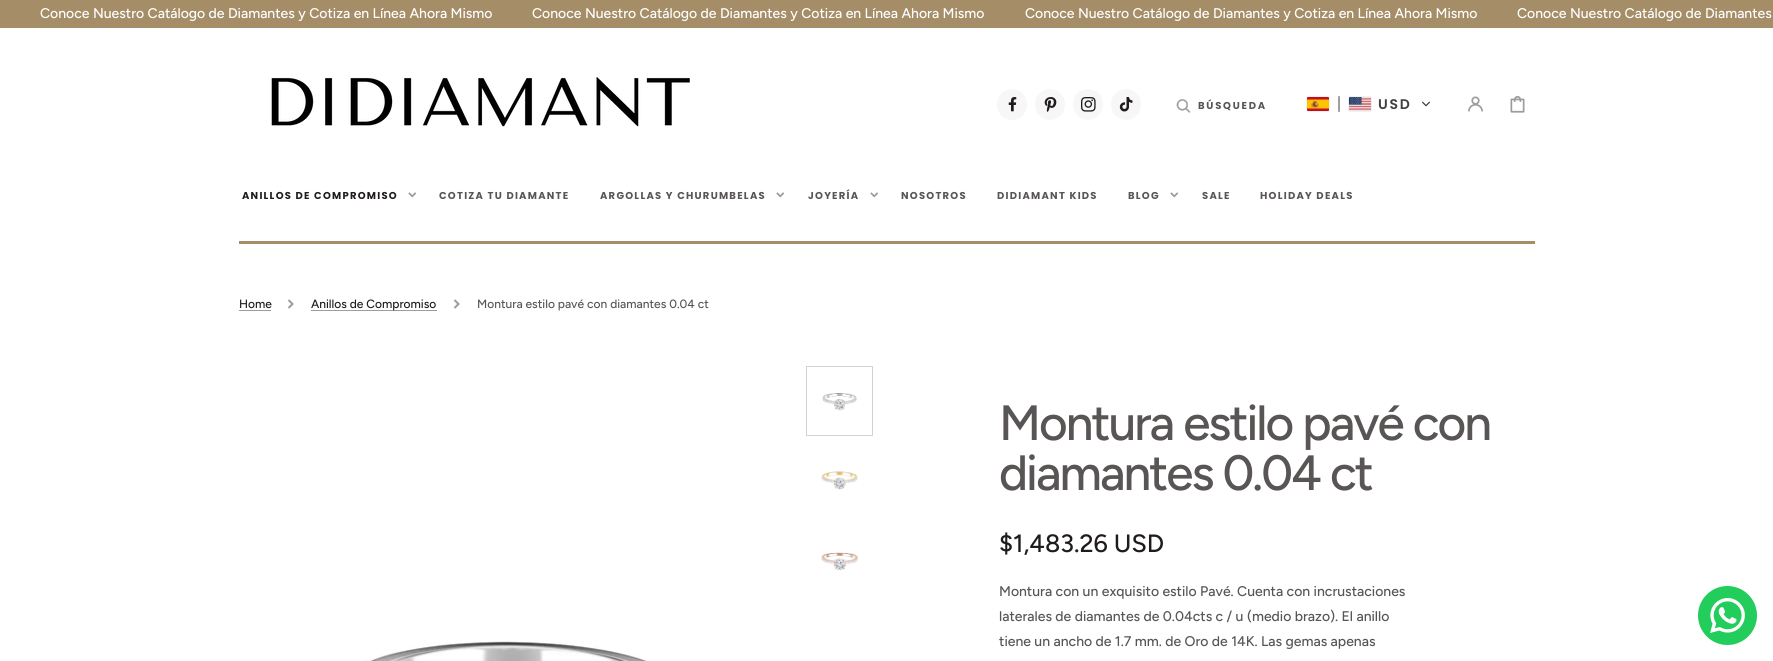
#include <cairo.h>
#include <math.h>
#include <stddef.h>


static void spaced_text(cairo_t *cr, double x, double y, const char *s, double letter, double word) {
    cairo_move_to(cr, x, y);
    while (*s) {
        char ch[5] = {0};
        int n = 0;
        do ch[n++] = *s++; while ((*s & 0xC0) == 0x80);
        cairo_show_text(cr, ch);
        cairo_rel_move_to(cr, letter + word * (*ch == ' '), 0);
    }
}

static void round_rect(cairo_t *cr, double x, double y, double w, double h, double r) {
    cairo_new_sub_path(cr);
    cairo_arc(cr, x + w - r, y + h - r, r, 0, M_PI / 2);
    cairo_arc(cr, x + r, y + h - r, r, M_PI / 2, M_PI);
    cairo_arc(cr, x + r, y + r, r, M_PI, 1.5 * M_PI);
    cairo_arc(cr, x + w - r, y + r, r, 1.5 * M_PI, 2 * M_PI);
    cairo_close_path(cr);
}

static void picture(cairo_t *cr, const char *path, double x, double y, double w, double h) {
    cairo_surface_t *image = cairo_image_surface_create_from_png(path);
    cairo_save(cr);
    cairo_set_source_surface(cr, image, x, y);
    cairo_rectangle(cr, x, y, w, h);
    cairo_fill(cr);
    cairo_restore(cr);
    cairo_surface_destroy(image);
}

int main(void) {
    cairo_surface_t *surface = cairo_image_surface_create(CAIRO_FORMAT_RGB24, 1773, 661);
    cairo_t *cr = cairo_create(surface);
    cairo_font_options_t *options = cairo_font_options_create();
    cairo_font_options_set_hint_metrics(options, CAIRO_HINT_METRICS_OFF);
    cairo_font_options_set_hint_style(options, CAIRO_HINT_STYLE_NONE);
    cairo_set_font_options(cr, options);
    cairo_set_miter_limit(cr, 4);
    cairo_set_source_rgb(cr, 1, 1, 1);
    cairo_paint(cr);
    cairo_set_source_rgb(cr, 0.643, 0.553, 0.404);
    cairo_rectangle(cr, 0, 0, 1773, 28);
    cairo_fill(cr);
    cairo_select_font_face(cr, "Figtree Medium", CAIRO_FONT_SLANT_NORMAL, CAIRO_FONT_WEIGHT_NORMAL);
    cairo_set_font_size(cr, 14);
    cairo_set_source_rgb(cr, 1, 1, 1);
    cairo_move_to(cr, 40, 18);
    cairo_show_text(cr, "Conoce Nuestro Catálogo de Diamantes y Cotiza en Línea Ahora Mismo");
    cairo_move_to(cr, 532, 18);
    cairo_show_text(cr, "Conoce Nuestro Catálogo de Diamantes y Cotiza en Línea Ahora Mismo");
    cairo_move_to(cr, 1025, 18);
    cairo_show_text(cr, "Conoce Nuestro Catálogo de Diamantes y Cotiza en Línea Ahora Mismo");
    cairo_move_to(cr, 1517, 18);
    cairo_show_text(cr, "Conoce Nuestro Catálogo de Diamantes");
    picture(cr, "img1.png", 271, 77, 419, 50);
    cairo_set_source_rgb(cr, 0.965, 0.965, 0.965);
    round_rect(cr, 997, 89, 30, 31, 15);
    cairo_fill(cr);
    picture(cr, "img2.png", 1008, 97, 9, 15);
    round_rect(cr, 1035, 89, 30, 31, 15);
    cairo_fill(cr);
    picture(cr, "img3.png", 1044, 97, 13, 15);
    round_rect(cr, 1073, 89, 30, 31, 15);
    cairo_fill(cr);
    picture(cr, "img4.png", 1081, 97, 15, 15);
    round_rect(cr, 1111, 89, 30, 31, 15);
    cairo_fill(cr);
    picture(cr, "img5.png", 1119, 97, 14, 15);
    picture(cr, "img6.png", 1176, 99, 15, 14);
    cairo_select_font_face(cr, "Poppins", CAIRO_FONT_SLANT_NORMAL, CAIRO_FONT_WEIGHT_BOLD);
    cairo_set_font_size(cr, 10);
    cairo_set_source_rgb(cr, 0.349, 0.333, 0.333);
    spaced_text(cr, 1198, 109, "BÚSQUEDA", 1.75, 0);
    round_rect(cr, 1306.5, 96.5, 23, 15, 1.5);
    cairo_set_source_rgb(cr, 0.941, 0.945, 0.949);
    cairo_set_line_width(cr, 1);
    cairo_stroke(cr);
    picture(cr, "img7.png", 1307, 97, 22, 14);
    picture(cr, "img8.png", 1338, 96, 2, 16);
    round_rect(cr, 1348.5, 96.5, 23, 15, 1.5);
    cairo_stroke(cr);
    picture(cr, "img9.png", 1349, 97, 22, 14);
    cairo_select_font_face(cr, "Poppins SemiBold", CAIRO_FONT_SLANT_NORMAL, CAIRO_FONT_WEIGHT_NORMAL);
    cairo_set_font_size(cr, 14);
    cairo_set_source_rgb(cr, 0.251, 0.251, 0.251);
    spaced_text(cr, 1378, 109, "USD", 1.75, 0);
    picture(cr, "img10.png", 1422, 101, 8, 6);
    picture(cr, "img11.png", 1468, 96, 15, 16);
    picture(cr, "img12.png", 1510, 96, 15, 17);
    cairo_select_font_face(cr, "Poppins", CAIRO_FONT_SLANT_NORMAL, CAIRO_FONT_WEIGHT_BOLD);
    cairo_set_font_size(cr, 10);
    cairo_set_source_rgb(cr, 0.129, 0.11, 0.11);
    spaced_text(cr, 242, 199, "ANILLOS DE COMPROMISO", 1.25, 0);
    picture(cr, "img13.png", 408, 192, 8, 6);
    cairo_set_source_rgb(cr, 0.349, 0.333, 0.333);
    spaced_text(cr, 439, 199, "COTIZA TU DIAMANTE", 1.25, 0);
    spaced_text(cr, 600, 199, "ARGOLLAS Y CHURUMBELAS", 1.25, 0);
    picture(cr, "img14.png", 776, 192, 9, 6);
    spaced_text(cr, 808, 199, "JOYERÍA", 1.25, 0);
    picture(cr, "img13.png", 870, 192, 8, 6);
    spaced_text(cr, 901, 199, "NOSOTROS", 1.25, 0);
    spaced_text(cr, 997, 199, "DIDIAMANT KIDS", 1.25, 0);
    spaced_text(cr, 1128, 199, "BLOG", 1.25, 0);
    picture(cr, "img14.png", 1170, 192, 9, 6);
    spaced_text(cr, 1202, 199, "SALE", 1.25, 0);
    spaced_text(cr, 1260, 199, "HOLIDAY DEALS", 1.25, 0);
    cairo_set_source_rgb(cr, 0.643, 0.553, 0.404);
    cairo_rectangle(cr, 239, 241, 1296, 3);
    cairo_fill(cr);
    cairo_select_font_face(cr, "Figtree Medium", CAIRO_FONT_SLANT_NORMAL, CAIRO_FONT_WEIGHT_NORMAL);
    cairo_set_font_size(cr, 12);
    cairo_set_source_rgb(cr, 0.129, 0.11, 0.11);
    cairo_move_to(cr, 239, 308);
    cairo_show_text(cr, "Home");
    cairo_set_source_rgb(cr, 0.616, 0.616, 0.616);
    cairo_rectangle(cr, 239, 310, 32, 1);
    cairo_fill(cr);
    picture(cr, "img15.png", 287, 299, 7, 10);
    cairo_rectangle(cr, 311, 310, 126, 1);
    cairo_fill(cr);
    cairo_set_source_rgb(cr, 0.129, 0.11, 0.11);
    cairo_move_to(cr, 311, 308);
    cairo_show_text(cr, "Anillos de Compromiso");
    picture(cr, "img15.png", 453, 299, 7, 10);
    cairo_set_source_rgb(cr, 0.349, 0.333, 0.333);
    cairo_move_to(cr, 477, 308);
    cairo_show_text(cr, "Montura estilo pavé con diamantes 0.04 ct");
    cairo_rectangle(cr, 806.5, 366.5, 66, 69);
    cairo_set_source_rgb(cr, 0.827, 0.824, 0.824);
    cairo_stroke(cr);
    picture(cr, "img16.png", 822, 393, 35, 18);
    picture(cr, "img17.png", 821, 471, 37, 19);
    picture(cr, "img18.png", 821, 552, 37, 18);
    picture(cr, "img19.png", 366, 641, 281, 20);
    cairo_set_font_size(cr, 49.5);
    cairo_set_source_rgb(cr, 0.349, 0.333, 0.333);
    spaced_text(cr, 999, 440, "Montura estilo pavé con", -2, 0);
    spaced_text(cr, 999, 490, "diamantes 0.04 ct", -2, 0);
    cairo_set_font_size(cr, 25);
    cairo_set_source_rgb(cr, 0.129, 0.11, 0.11);
    cairo_move_to(cr, 999, 552);
    cairo_show_text(cr, "$1,483.26 USD");
    cairo_set_font_size(cr, 14);
    cairo_set_source_rgb(cr, 0.349, 0.333, 0.333);
    cairo_move_to(cr, 999, 596);
    cairo_show_text(cr, "Montura con un exquisito estilo Pavé. Cuenta con incrustaciones");
    cairo_move_to(cr, 999, 621);
    cairo_show_text(cr, "laterales de diamantes de 0.04cts c / u (medio brazo). El anillo");
    cairo_move_to(cr, 999, 646);
    cairo_show_text(cr, "tiene un ancho de 1.7 mm. de Oro de 14K. Las gemas apenas");
    cairo_set_source_rgb(cr, 0.133, 0.804, 0.357);
    cairo_new_path(cr);
    cairo_arc(cr, 1727.5, 615.5, 29.5, 0, 2 * M_PI);
    cairo_fill(cr);
    picture(cr, "img20.png", 1710, 598, 35, 35);
    cairo_surface_write_to_png(surface, "page.png");
    cairo_font_options_destroy(options);
    cairo_destroy(cr);
    cairo_surface_destroy(surface);
    return 0;
}
